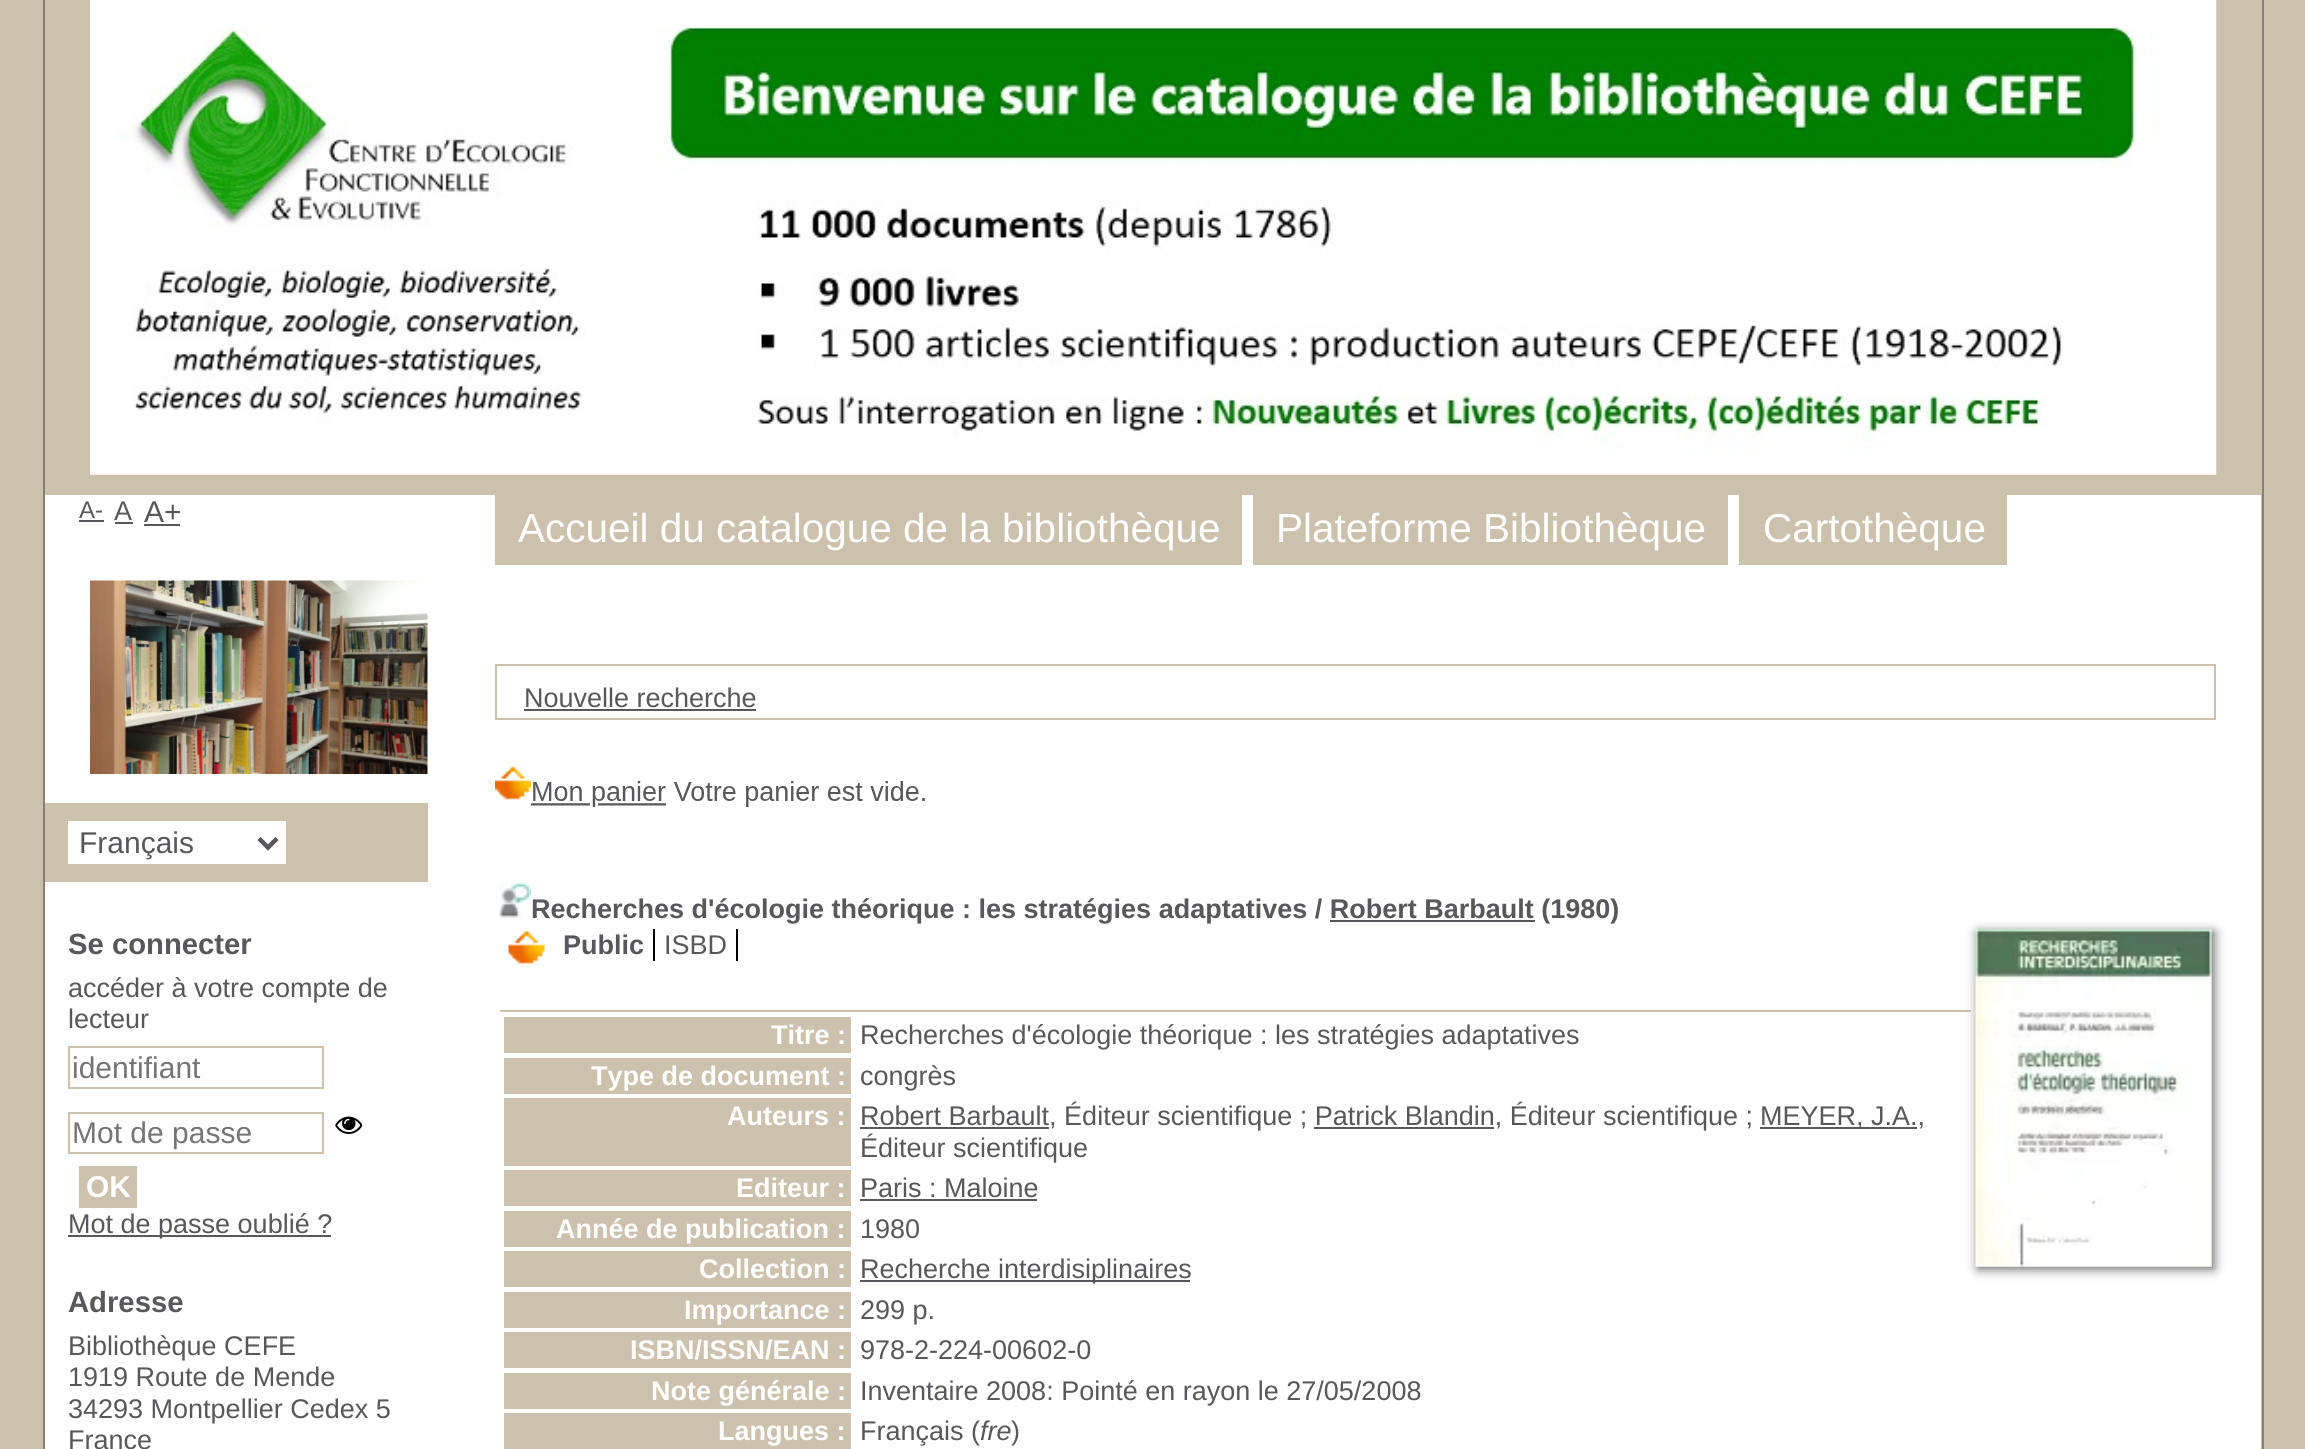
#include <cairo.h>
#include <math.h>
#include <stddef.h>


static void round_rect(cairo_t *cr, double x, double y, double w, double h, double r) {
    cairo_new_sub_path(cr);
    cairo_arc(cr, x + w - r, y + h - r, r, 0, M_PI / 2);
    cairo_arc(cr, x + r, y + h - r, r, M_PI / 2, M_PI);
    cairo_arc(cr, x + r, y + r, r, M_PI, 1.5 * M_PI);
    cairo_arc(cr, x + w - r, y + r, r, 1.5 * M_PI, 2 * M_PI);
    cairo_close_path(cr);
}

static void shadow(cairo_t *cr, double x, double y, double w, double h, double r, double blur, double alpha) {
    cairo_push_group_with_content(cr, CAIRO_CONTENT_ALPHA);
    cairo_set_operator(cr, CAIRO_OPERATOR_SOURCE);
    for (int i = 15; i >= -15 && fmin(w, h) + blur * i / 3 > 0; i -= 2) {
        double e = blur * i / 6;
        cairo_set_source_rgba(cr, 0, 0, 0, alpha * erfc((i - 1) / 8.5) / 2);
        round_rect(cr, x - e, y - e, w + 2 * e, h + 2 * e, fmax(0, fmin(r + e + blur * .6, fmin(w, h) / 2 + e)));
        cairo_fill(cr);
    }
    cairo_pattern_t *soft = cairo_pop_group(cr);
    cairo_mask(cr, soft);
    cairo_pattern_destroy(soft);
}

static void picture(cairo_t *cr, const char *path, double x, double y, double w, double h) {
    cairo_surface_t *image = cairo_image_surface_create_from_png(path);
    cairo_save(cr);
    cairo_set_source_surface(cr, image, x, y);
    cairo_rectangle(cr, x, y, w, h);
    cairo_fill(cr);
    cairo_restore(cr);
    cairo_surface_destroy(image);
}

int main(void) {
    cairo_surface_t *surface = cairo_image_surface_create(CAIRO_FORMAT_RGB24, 2305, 1449);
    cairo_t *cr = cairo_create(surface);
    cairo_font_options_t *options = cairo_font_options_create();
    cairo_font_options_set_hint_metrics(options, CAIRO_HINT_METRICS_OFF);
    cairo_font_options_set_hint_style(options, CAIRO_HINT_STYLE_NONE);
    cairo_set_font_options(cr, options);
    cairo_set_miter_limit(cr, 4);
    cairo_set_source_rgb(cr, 0.8, 0.757, 0.678);
    cairo_paint(cr);
    cairo_rectangle(cr, 44, -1, 2219, 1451);
    cairo_set_source_rgb(cr, 0.529, 0.498, 0.447);
    cairo_stroke(cr);
    cairo_set_source_rgb(cr, 1, 1, 1);
    cairo_rectangle(cr, 45, 495, 2216, 954);
    cairo_fill(cr);
    cairo_select_font_face(cr, "Liberation Sans", CAIRO_FONT_SLANT_NORMAL, CAIRO_FONT_WEIGHT_NORMAL);
    cairo_set_font_size(cr, 24);
    cairo_set_source_rgb(cr, 0.345, 0.345, 0.361);
    cairo_move_to(cr, 79, 518);
    cairo_show_text(cr, "A-");
    cairo_rectangle(cr, 79, 520, 25, 2);
    cairo_fill(cr);
    cairo_set_font_size(cr, 27);
    cairo_move_to(cr, 114, 520);
    cairo_show_text(cr, "A");
    cairo_rectangle(cr, 115, 522, 18, 2);
    cairo_fill(cr);
    cairo_set_font_size(cr, 30);
    cairo_move_to(cr, 144, 522);
    cairo_show_text(cr, "A+");
    cairo_rectangle(cr, 144, 524, 36, 2);
    cairo_fill(cr);
    picture(cr, "img1.png", 90, 580, 338, 194);
    cairo_set_source_rgb(cr, 0.8, 0.757, 0.678);
    cairo_rectangle(cr, 45, 803, 383, 79);
    cairo_fill(cr);
    cairo_set_source_rgb(cr, 1, 1, 1);
    cairo_rectangle(cr, 68, 821, 218, 43);
    cairo_fill(cr);
    cairo_new_path(cr);
    cairo_move_to(cr, 259, 838.5);
    cairo_line_to(cr, 268, 847.5);
    cairo_line_to(cr, 277, 838.5);
    cairo_set_source_rgb(cr, 0.345, 0.345, 0.361);
    cairo_set_line_width(cr, 4.5);
    cairo_stroke(cr);
    cairo_move_to(cr, 79, 853);
    cairo_show_text(cr, "Français");
    cairo_select_font_face(cr, "Liberation Sans", CAIRO_FONT_SLANT_NORMAL, CAIRO_FONT_WEIGHT_BOLD);
    cairo_set_font_size(cr, 29.25);
    cairo_move_to(cr, 68, 954);
    cairo_show_text(cr, "Se connecter");
    cairo_select_font_face(cr, "Liberation Sans", CAIRO_FONT_SLANT_NORMAL, CAIRO_FONT_WEIGHT_NORMAL);
    cairo_set_font_size(cr, 27);
    cairo_move_to(cr, 68, 997);
    cairo_show_text(cr, "accéder à votre compte de");
    cairo_move_to(cr, 68, 1028);
    cairo_show_text(cr, "lecteur");
    cairo_rectangle(cr, 69, 1047, 254, 41);
    cairo_set_source_rgb(cr, 0.8, 0.757, 0.678);
    cairo_set_line_width(cr, 2);
    cairo_stroke(cr);
    cairo_set_font_size(cr, 30);
    cairo_set_source_rgb(cr, 0.459, 0.459, 0.459);
    cairo_move_to(cr, 72, 1078);
    cairo_show_text(cr, "identifiant");
    cairo_rectangle(cr, 69, 1113, 254, 40);
    cairo_set_source_rgb(cr, 0.8, 0.757, 0.678);
    cairo_stroke(cr);
    cairo_set_source_rgb(cr, 0.459, 0.459, 0.459);
    cairo_move_to(cr, 72, 1143);
    cairo_show_text(cr, "Mot de passe");
    picture(cr, "img2.png", 335, 1116, 28, 18);
    cairo_set_source_rgb(cr, 0.8, 0.757, 0.678);
    cairo_rectangle(cr, 79, 1166, 58, 42);
    cairo_fill(cr);
    cairo_select_font_face(cr, "Liberation Sans", CAIRO_FONT_SLANT_NORMAL, CAIRO_FONT_WEIGHT_BOLD);
    cairo_set_source_rgb(cr, 1, 1, 1);
    cairo_move_to(cr, 86, 1197);
    cairo_show_text(cr, "OK");
    cairo_set_source_rgb(cr, 0.345, 0.345, 0.361);
    cairo_rectangle(cr, 68, 1235, 263, 2);
    cairo_fill(cr);
    cairo_select_font_face(cr, "Liberation Sans", CAIRO_FONT_SLANT_NORMAL, CAIRO_FONT_WEIGHT_NORMAL);
    cairo_set_font_size(cr, 27);
    cairo_move_to(cr, 68, 1233);
    cairo_show_text(cr, "Mot de passe oublié ?");
    cairo_select_font_face(cr, "Liberation Sans", CAIRO_FONT_SLANT_NORMAL, CAIRO_FONT_WEIGHT_BOLD);
    cairo_set_font_size(cr, 29.25);
    cairo_move_to(cr, 68, 1312);
    cairo_show_text(cr, "Adresse");
    cairo_select_font_face(cr, "Liberation Sans", CAIRO_FONT_SLANT_NORMAL, CAIRO_FONT_WEIGHT_NORMAL);
    cairo_set_font_size(cr, 27);
    cairo_move_to(cr, 68, 1355);
    cairo_show_text(cr, "Bibliothèque CEFE");
    cairo_move_to(cr, 68, 1386);
    cairo_show_text(cr, "1919 Route de Mende");
    cairo_move_to(cr, 68, 1418);
    cairo_show_text(cr, "34293 Montpellier Cedex 5");
    cairo_move_to(cr, 68, 1449);
    cairo_show_text(cr, "France");
    picture(cr, "img3.png", 90, 0, 2127, 475);
    cairo_set_source_rgb(cr, 0.8, 0.757, 0.678);
    cairo_rectangle(cr, 495, 495, 747, 70);
    cairo_fill(cr);
    cairo_set_font_size(cr, 40.5);
    cairo_set_source_rgb(cr, 1, 1, 1);
    cairo_move_to(cr, 518, 542);
    cairo_show_text(cr, "Accueil du catalogue de la bibliothèque");
    cairo_set_source_rgb(cr, 0.8, 0.757, 0.678);
    cairo_rectangle(cr, 1253, 495, 475, 70);
    cairo_fill(cr);
    cairo_set_source_rgb(cr, 1, 1, 1);
    cairo_move_to(cr, 1276, 542);
    cairo_show_text(cr, "Plateforme Bibliothèque");
    cairo_set_source_rgb(cr, 0.8, 0.757, 0.678);
    cairo_rectangle(cr, 1739, 495, 268, 70);
    cairo_fill(cr);
    cairo_set_source_rgb(cr, 1, 1, 1);
    cairo_move_to(cr, 1763, 542);
    cairo_show_text(cr, "Cartothèque");
    cairo_rectangle(cr, 496, 665, 1719, 54);
    cairo_set_source_rgb(cr, 0.8, 0.757, 0.678);
    cairo_stroke(cr);
    cairo_set_font_size(cr, 27);
    cairo_set_source_rgb(cr, 0.345, 0.345, 0.361);
    cairo_move_to(cr, 524, 707);
    cairo_show_text(cr, "Nouvelle recherche");
    cairo_rectangle(cr, 524, 709, 232, 2);
    cairo_fill(cr);
    picture(cr, "img4.png", 495, 766, 430, 41);
    picture(cr, "img5.png", 499, 882, 32, 36);
    cairo_select_font_face(cr, "Liberation Sans", CAIRO_FONT_SLANT_NORMAL, CAIRO_FONT_WEIGHT_BOLD);
    cairo_move_to(cr, 531, 918);
    cairo_show_text(cr, "Recherches d'écologie théorique : les stratégies adaptatives / Robert Barbault (1980)");
    cairo_rectangle(cr, 1330, 920, 205, 2);
    cairo_fill(cr);
    cairo_set_source_rgb(cr, 0.8, 0.757, 0.678);
    cairo_rectangle(cr, 500, 1010, 1471, 2);
    cairo_fill(cr);
    picture(cr, "img6.png", 508, 931, 37, 33);
    cairo_set_source_rgb(cr, 0, 0, 0);
    cairo_rectangle(cr, 653, 929, 2, 32);
    cairo_fill(cr);
    cairo_set_source_rgb(cr, 0.345, 0.345, 0.361);
    cairo_move_to(cr, 563, 954);
    cairo_show_text(cr, "Public");
    cairo_set_source_rgb(cr, 0, 0, 0);
    cairo_rectangle(cr, 736, 929, 2, 32);
    cairo_fill(cr);
    cairo_select_font_face(cr, "Liberation Sans", CAIRO_FONT_SLANT_NORMAL, CAIRO_FONT_WEIGHT_NORMAL);
    cairo_set_source_rgb(cr, 0.345, 0.345, 0.361);
    cairo_move_to(cr, 664, 954);
    cairo_show_text(cr, "ISBD");
    cairo_set_source_rgb(cr, 0.8, 0.757, 0.678);
    cairo_rectangle(cr, 504, 1017, 347, 36);
    cairo_fill(cr);
    cairo_select_font_face(cr, "Liberation Sans", CAIRO_FONT_SLANT_NORMAL, CAIRO_FONT_WEIGHT_BOLD);
    cairo_set_source_rgb(cr, 1, 1, 1);
    cairo_move_to(cr, 771, 1044);
    cairo_show_text(cr, "Titre :");
    cairo_select_font_face(cr, "Liberation Sans", CAIRO_FONT_SLANT_NORMAL, CAIRO_FONT_WEIGHT_NORMAL);
    cairo_set_source_rgb(cr, 0.345, 0.345, 0.361);
    cairo_move_to(cr, 860, 1044);
    cairo_show_text(cr, "Recherches d'écologie théorique : les stratégies adaptatives");
    cairo_set_source_rgb(cr, 0.8, 0.757, 0.678);
    cairo_rectangle(cr, 504, 1058, 347, 36);
    cairo_fill(cr);
    cairo_select_font_face(cr, "Liberation Sans", CAIRO_FONT_SLANT_NORMAL, CAIRO_FONT_WEIGHT_BOLD);
    cairo_set_source_rgb(cr, 1, 1, 1);
    cairo_move_to(cr, 591, 1085);
    cairo_show_text(cr, "Type de document :");
    cairo_select_font_face(cr, "Liberation Sans", CAIRO_FONT_SLANT_NORMAL, CAIRO_FONT_WEIGHT_NORMAL);
    cairo_set_source_rgb(cr, 0.345, 0.345, 0.361);
    cairo_move_to(cr, 860, 1085);
    cairo_show_text(cr, "congrès");
    cairo_set_source_rgb(cr, 0.8, 0.757, 0.678);
    cairo_rectangle(cr, 504, 1098, 347, 68);
    cairo_fill(cr);
    cairo_select_font_face(cr, "Liberation Sans", CAIRO_FONT_SLANT_NORMAL, CAIRO_FONT_WEIGHT_BOLD);
    cairo_set_source_rgb(cr, 1, 1, 1);
    cairo_move_to(cr, 727, 1125);
    cairo_show_text(cr, "Auteurs :");
    cairo_set_source_rgb(cr, 0.345, 0.345, 0.361);
    cairo_rectangle(cr, 860, 1127, 189, 2);
    cairo_fill(cr);
    cairo_select_font_face(cr, "Liberation Sans", CAIRO_FONT_SLANT_NORMAL, CAIRO_FONT_WEIGHT_NORMAL);
    cairo_move_to(cr, 860, 1125);
    cairo_show_text(cr, "Robert Barbault, Éditeur scientifique ; Patrick Blandin, Éditeur scientifique ;");
    cairo_rectangle(cr, 1314, 1127, 180, 2);
    cairo_fill(cr);
    cairo_rectangle(cr, 1760, 1127, 157, 2);
    cairo_fill(cr);
    cairo_move_to(cr, 1760, 1125);
    cairo_show_text(cr, "MEYER, J.A.,");
    cairo_move_to(cr, 860, 1157);
    cairo_show_text(cr, "Éditeur scientifique");
    cairo_set_source_rgb(cr, 0.8, 0.757, 0.678);
    cairo_rectangle(cr, 504, 1170, 347, 36);
    cairo_fill(cr);
    cairo_select_font_face(cr, "Liberation Sans", CAIRO_FONT_SLANT_NORMAL, CAIRO_FONT_WEIGHT_BOLD);
    cairo_set_source_rgb(cr, 1, 1, 1);
    cairo_move_to(cr, 736, 1197);
    cairo_show_text(cr, "Editeur :");
    cairo_select_font_face(cr, "Liberation Sans", CAIRO_FONT_SLANT_NORMAL, CAIRO_FONT_WEIGHT_NORMAL);
    cairo_set_source_rgb(cr, 0.345, 0.345, 0.361);
    cairo_move_to(cr, 860, 1197);
    cairo_show_text(cr, "Paris : Maloine");
    cairo_rectangle(cr, 860, 1199, 177, 2);
    cairo_fill(cr);
    cairo_set_source_rgb(cr, 0.8, 0.757, 0.678);
    cairo_rectangle(cr, 504, 1211, 347, 36);
    cairo_fill(cr);
    cairo_select_font_face(cr, "Liberation Sans", CAIRO_FONT_SLANT_NORMAL, CAIRO_FONT_WEIGHT_BOLD);
    cairo_set_source_rgb(cr, 1, 1, 1);
    cairo_move_to(cr, 556, 1238);
    cairo_show_text(cr, "Année de publication :");
    cairo_select_font_face(cr, "Liberation Sans", CAIRO_FONT_SLANT_NORMAL, CAIRO_FONT_WEIGHT_NORMAL);
    cairo_set_source_rgb(cr, 0.345, 0.345, 0.361);
    cairo_move_to(cr, 860, 1238);
    cairo_show_text(cr, "1980");
    cairo_set_source_rgb(cr, 0.8, 0.757, 0.678);
    cairo_rectangle(cr, 504, 1251, 347, 36);
    cairo_fill(cr);
    cairo_select_font_face(cr, "Liberation Sans", CAIRO_FONT_SLANT_NORMAL, CAIRO_FONT_WEIGHT_BOLD);
    cairo_set_source_rgb(cr, 1, 1, 1);
    cairo_move_to(cr, 699, 1278);
    cairo_show_text(cr, "Collection :");
    cairo_set_source_rgb(cr, 0.345, 0.345, 0.361);
    cairo_rectangle(cr, 860, 1280, 330, 2);
    cairo_fill(cr);
    cairo_select_font_face(cr, "Liberation Sans", CAIRO_FONT_SLANT_NORMAL, CAIRO_FONT_WEIGHT_NORMAL);
    cairo_move_to(cr, 860, 1278);
    cairo_show_text(cr, "Recherche interdisiplinaires");
    cairo_set_source_rgb(cr, 0.8, 0.757, 0.678);
    cairo_rectangle(cr, 504, 1292, 347, 36);
    cairo_fill(cr);
    cairo_select_font_face(cr, "Liberation Sans", CAIRO_FONT_SLANT_NORMAL, CAIRO_FONT_WEIGHT_BOLD);
    cairo_set_source_rgb(cr, 1, 1, 1);
    cairo_move_to(cr, 684, 1319);
    cairo_show_text(cr, "Importance :");
    cairo_select_font_face(cr, "Liberation Sans", CAIRO_FONT_SLANT_NORMAL, CAIRO_FONT_WEIGHT_NORMAL);
    cairo_set_source_rgb(cr, 0.345, 0.345, 0.361);
    cairo_move_to(cr, 860, 1319);
    cairo_show_text(cr, "299 p.");
    cairo_set_source_rgb(cr, 0.8, 0.757, 0.678);
    cairo_rectangle(cr, 504, 1332, 347, 36);
    cairo_fill(cr);
    cairo_select_font_face(cr, "Liberation Sans", CAIRO_FONT_SLANT_NORMAL, CAIRO_FONT_WEIGHT_BOLD);
    cairo_set_source_rgb(cr, 1, 1, 1);
    cairo_move_to(cr, 630, 1359);
    cairo_show_text(cr, "ISBN/ISSN/EAN :");
    cairo_select_font_face(cr, "Liberation Sans", CAIRO_FONT_SLANT_NORMAL, CAIRO_FONT_WEIGHT_NORMAL);
    cairo_set_source_rgb(cr, 0.345, 0.345, 0.361);
    cairo_move_to(cr, 860, 1359);
    cairo_show_text(cr, "978-2-224-00602-0");
    cairo_set_source_rgb(cr, 0.8, 0.757, 0.678);
    cairo_rectangle(cr, 504, 1373, 347, 36);
    cairo_fill(cr);
    cairo_select_font_face(cr, "Liberation Sans", CAIRO_FONT_SLANT_NORMAL, CAIRO_FONT_WEIGHT_BOLD);
    cairo_set_source_rgb(cr, 1, 1, 1);
    cairo_move_to(cr, 651, 1400);
    cairo_show_text(cr, "Note générale :");
    cairo_select_font_face(cr, "Liberation Sans", CAIRO_FONT_SLANT_NORMAL, CAIRO_FONT_WEIGHT_NORMAL);
    cairo_set_source_rgb(cr, 0.345, 0.345, 0.361);
    cairo_move_to(cr, 860, 1400);
    cairo_show_text(cr, "Inventaire 2008: Pointé en rayon le 27/05/2008");
    cairo_set_source_rgb(cr, 0.8, 0.757, 0.678);
    cairo_rectangle(cr, 504, 1413, 347, 36);
    cairo_fill(cr);
    cairo_select_font_face(cr, "Liberation Sans", CAIRO_FONT_SLANT_NORMAL, CAIRO_FONT_WEIGHT_BOLD);
    cairo_set_source_rgb(cr, 1, 1, 1);
    cairo_move_to(cr, 718, 1440);
    cairo_show_text(cr, "Langues :");
    cairo_select_font_face(cr, "Liberation Sans", CAIRO_FONT_SLANT_NORMAL, CAIRO_FONT_WEIGHT_NORMAL);
    cairo_set_source_rgb(cr, 0.345, 0.345, 0.361);
    cairo_move_to(cr, 860, 1440);
    cairo_show_text(cr, "Français (");
    cairo_select_font_face(cr, "Liberation Sans", CAIRO_FONT_SLANT_ITALIC, CAIRO_FONT_WEIGHT_NORMAL);
    cairo_move_to(cr, 980, 1440);
    cairo_show_text(cr, "fre");
    cairo_select_font_face(cr, "Liberation Sans", CAIRO_FONT_SLANT_NORMAL, CAIRO_FONT_WEIGHT_NORMAL);
    cairo_move_to(cr, 1011, 1440);
    cairo_show_text(cr, ")");
    cairo_set_source_rgb(cr, 0.4, 0.4, 0.4);
    shadow(cr, 1978, 932, 236, 337, 0, 5.5, 1);
    picture(cr, "img7.png", 1975, 929, 237, 338);
    cairo_surface_write_to_png(surface, "page.png");
    cairo_font_options_destroy(options);
    cairo_destroy(cr);
    cairo_surface_destroy(surface);
    return 0;
}
